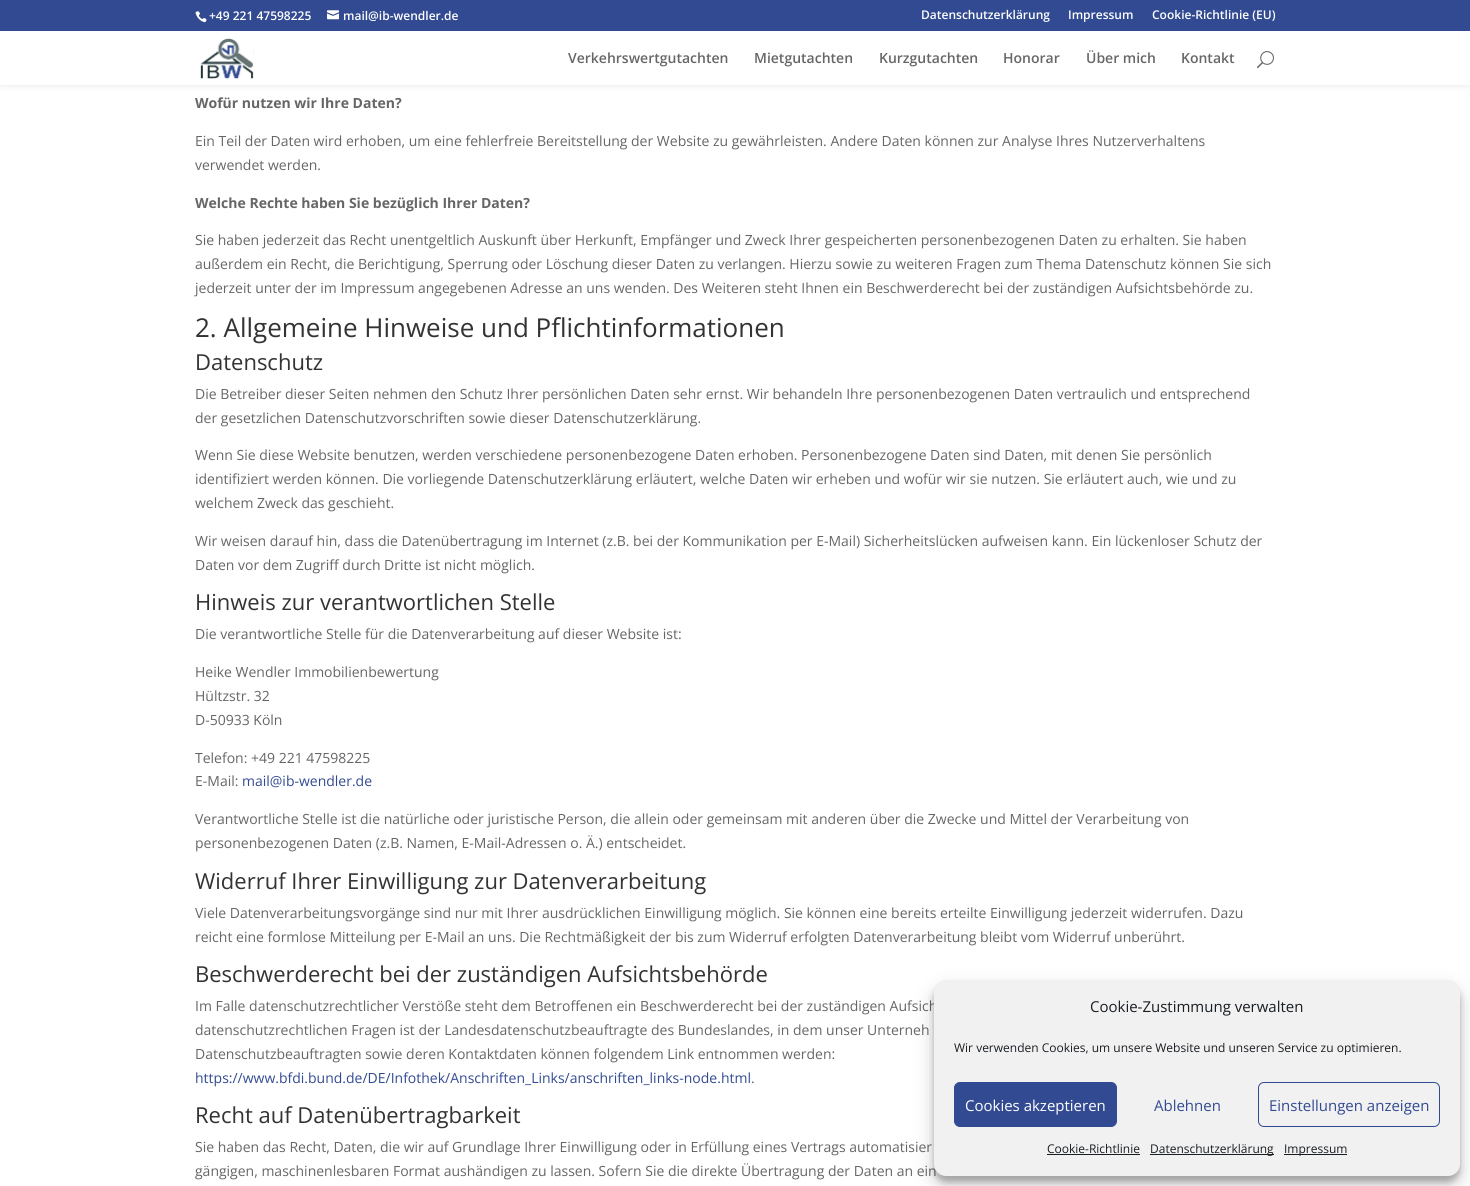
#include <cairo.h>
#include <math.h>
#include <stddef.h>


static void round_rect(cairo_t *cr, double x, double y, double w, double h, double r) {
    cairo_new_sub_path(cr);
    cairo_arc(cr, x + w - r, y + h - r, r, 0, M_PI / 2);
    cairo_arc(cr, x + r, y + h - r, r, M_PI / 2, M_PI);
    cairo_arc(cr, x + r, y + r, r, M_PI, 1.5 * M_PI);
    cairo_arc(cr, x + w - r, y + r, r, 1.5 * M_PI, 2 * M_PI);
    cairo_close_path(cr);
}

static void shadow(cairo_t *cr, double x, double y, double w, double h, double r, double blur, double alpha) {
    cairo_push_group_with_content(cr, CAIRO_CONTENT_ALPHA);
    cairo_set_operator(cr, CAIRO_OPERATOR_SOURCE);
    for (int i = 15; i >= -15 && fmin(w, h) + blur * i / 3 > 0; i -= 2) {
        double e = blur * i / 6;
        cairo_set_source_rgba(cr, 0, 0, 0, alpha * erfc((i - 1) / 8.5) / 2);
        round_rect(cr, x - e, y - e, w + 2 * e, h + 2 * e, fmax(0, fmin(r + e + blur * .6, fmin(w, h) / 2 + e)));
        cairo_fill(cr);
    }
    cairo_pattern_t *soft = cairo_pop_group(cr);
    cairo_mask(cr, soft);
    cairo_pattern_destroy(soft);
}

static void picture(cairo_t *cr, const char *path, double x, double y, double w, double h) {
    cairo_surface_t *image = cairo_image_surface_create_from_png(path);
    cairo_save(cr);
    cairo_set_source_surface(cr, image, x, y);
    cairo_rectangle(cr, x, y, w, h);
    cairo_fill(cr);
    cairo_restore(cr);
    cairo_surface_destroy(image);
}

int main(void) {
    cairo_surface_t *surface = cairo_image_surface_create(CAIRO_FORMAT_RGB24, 1470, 1186);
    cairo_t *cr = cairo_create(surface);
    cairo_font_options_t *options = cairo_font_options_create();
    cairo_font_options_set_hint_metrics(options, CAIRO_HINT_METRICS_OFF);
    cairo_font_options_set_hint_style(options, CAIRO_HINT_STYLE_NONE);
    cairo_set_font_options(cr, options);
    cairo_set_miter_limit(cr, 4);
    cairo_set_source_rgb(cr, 1, 1, 1);
    cairo_paint(cr);
    cairo_set_source_rgb(cr, 0, 0, 0);
    shadow(cr, 0, 31, 1470, 54, 0, 3.5, 0.1);
    cairo_set_source_rgb(cr, 0.196, 0.29, 0.573);
    cairo_rectangle(cr, 0, 0, 1470, 31);
    cairo_fill(cr);
    picture(cr, "img1.png", 195, 11, 12, 12);
    cairo_select_font_face(cr, "Open Sans SemiBold", CAIRO_FONT_SLANT_NORMAL, CAIRO_FONT_WEIGHT_NORMAL);
    cairo_set_font_size(cr, 12);
    cairo_set_source_rgb(cr, 1, 1, 1);
    cairo_move_to(cr, 209, 20);
    cairo_show_text(cr, "+49 221 47598225");
    picture(cr, "img2.png", 327, 10, 12, 10);
    cairo_move_to(cr, 343, 20);
    cairo_show_text(cr, "mail@ib-wendler.de");
    cairo_move_to(cr, 921, 19);
    cairo_show_text(cr, "Datenschutzerklärung");
    cairo_move_to(cr, 1068, 19);
    cairo_show_text(cr, "Impressum");
    cairo_move_to(cr, 1152, 19);
    cairo_show_text(cr, "Cookie-Richtlinie (EU)");
    cairo_rectangle(cr, 0, 31, 1470, 54);
    cairo_fill(cr);
    picture(cr, "img3.png", 200, 38, 54, 41);
    cairo_set_font_size(cr, 14);
    cairo_set_source_rgb(cr, 0.4, 0.4, 0.4);
    cairo_move_to(cr, 568, 63);
    cairo_show_text(cr, "Verkehrswertgutachten");
    cairo_move_to(cr, 754, 63);
    cairo_show_text(cr, "Mietgutachten");
    cairo_move_to(cr, 879, 63);
    cairo_show_text(cr, "Kurzgutachten");
    cairo_move_to(cr, 1003, 63);
    cairo_show_text(cr, "Honorar");
    cairo_move_to(cr, 1086, 63);
    cairo_show_text(cr, "Über mich");
    cairo_move_to(cr, 1181, 63);
    cairo_show_text(cr, "Kontakt");
    picture(cr, "img4.png", 1257, 51, 17, 18);
    cairo_select_font_face(cr, "Open Sans", CAIRO_FONT_SLANT_NORMAL, CAIRO_FONT_WEIGHT_BOLD);
    cairo_move_to(cr, 195, 108);
    cairo_show_text(cr, "Wofür nutzen wir Ihre Daten?");
    cairo_select_font_face(cr, "Open Sans", CAIRO_FONT_SLANT_NORMAL, CAIRO_FONT_WEIGHT_NORMAL);
    cairo_move_to(cr, 195, 146);
    cairo_show_text(cr, "Ein Teil der Daten wird erhoben, um eine fehlerfreie Bereitstellung der Website zu gewährleisten. Andere Daten können zur Analyse Ihres Nutzerverhaltens");
    cairo_move_to(cr, 195, 170);
    cairo_show_text(cr, "verwendet werden.");
    cairo_select_font_face(cr, "Open Sans", CAIRO_FONT_SLANT_NORMAL, CAIRO_FONT_WEIGHT_BOLD);
    cairo_move_to(cr, 195, 208);
    cairo_show_text(cr, "Welche Rechte haben Sie bezüglich Ihrer Daten?");
    cairo_select_font_face(cr, "Open Sans", CAIRO_FONT_SLANT_NORMAL, CAIRO_FONT_WEIGHT_NORMAL);
    cairo_move_to(cr, 195, 245);
    cairo_show_text(cr, "Sie haben jederzeit das Recht unentgeltlich Auskunft über Herkunft, Empfänger und Zweck Ihrer gespeicherten personenbezogenen Daten zu erhalten. Sie haben");
    cairo_move_to(cr, 195, 269);
    cairo_show_text(cr, "außerdem ein Recht, die Berichtigung, Sperrung oder Löschung dieser Daten zu verlangen. Hierzu sowie zu weiteren Fragen zum Thema Datenschutz können Sie sich");
    cairo_move_to(cr, 195, 293);
    cairo_show_text(cr, "jederzeit unter der im Impressum angegebenen Adresse an uns wenden. Des Weiteren steht Ihnen ein Beschwerderecht bei der zuständigen Aufsichtsbehörde zu.");
    cairo_set_font_size(cr, 26);
    cairo_set_source_rgb(cr, 0.2, 0.2, 0.2);
    cairo_move_to(cr, 195, 337);
    cairo_show_text(cr, "2. Allgemeine Hinweise und Pflichtinformationen");
    cairo_set_font_size(cr, 22);
    cairo_move_to(cr, 195, 370);
    cairo_show_text(cr, "Datenschutz");
    cairo_set_font_size(cr, 14);
    cairo_set_source_rgb(cr, 0.4, 0.4, 0.4);
    cairo_move_to(cr, 195, 399);
    cairo_show_text(cr, "Die Betreiber dieser Seiten nehmen den Schutz Ihrer persönlichen Daten sehr ernst. Wir behandeln Ihre personenbezogenen Daten vertraulich und entsprechend");
    cairo_move_to(cr, 195, 423);
    cairo_show_text(cr, "der gesetzlichen Datenschutzvorschriften sowie dieser Datenschutzerklärung.");
    cairo_move_to(cr, 195, 460);
    cairo_show_text(cr, "Wenn Sie diese Website benutzen, werden verschiedene personenbezogene Daten erhoben. Personenbezogene Daten sind Daten, mit denen Sie persönlich");
    cairo_move_to(cr, 195, 484);
    cairo_show_text(cr, "identifiziert werden können. Die vorliegende Datenschutzerklärung erläutert, welche Daten wir erheben und wofür wir sie nutzen. Sie erläutert auch, wie und zu");
    cairo_move_to(cr, 195, 508);
    cairo_show_text(cr, "welchem Zweck das geschieht.");
    cairo_move_to(cr, 195, 546);
    cairo_show_text(cr, "Wir weisen darauf hin, dass die Datenübertragung im Internet (z.B. bei der Kommunikation per E-Mail) Sicherheitslücken aufweisen kann. Ein lückenloser Schutz der");
    cairo_move_to(cr, 195, 570);
    cairo_show_text(cr, "Daten vor dem Zugriff durch Dritte ist nicht möglich.");
    cairo_set_font_size(cr, 22);
    cairo_set_source_rgb(cr, 0.2, 0.2, 0.2);
    cairo_move_to(cr, 195, 610);
    cairo_show_text(cr, "Hinweis zur verantwortlichen Stelle");
    cairo_set_font_size(cr, 14);
    cairo_set_source_rgb(cr, 0.4, 0.4, 0.4);
    cairo_move_to(cr, 195, 639);
    cairo_show_text(cr, "Die verantwortliche Stelle für die Datenverarbeitung auf dieser Website ist:");
    cairo_move_to(cr, 195, 677);
    cairo_show_text(cr, "Heike Wendler Immobilienbewertung");
    cairo_move_to(cr, 195, 701);
    cairo_show_text(cr, "Hültzstr. 32");
    cairo_move_to(cr, 195, 725);
    cairo_show_text(cr, "D-50933 Köln");
    cairo_move_to(cr, 195, 763);
    cairo_show_text(cr, "Telefon: +49 221 47598225");
    cairo_move_to(cr, 195, 786);
    cairo_show_text(cr, "E-Mail:");
    cairo_set_source_rgb(cr, 0.196, 0.29, 0.573);
    cairo_move_to(cr, 242, 786);
    cairo_show_text(cr, "mail@ib-wendler.de");
    cairo_set_source_rgb(cr, 0.4, 0.4, 0.4);
    cairo_move_to(cr, 195, 824);
    cairo_show_text(cr, "Verantwortliche Stelle ist die natürliche oder juristische Person, die allein oder gemeinsam mit anderen über die Zwecke und Mittel der Verarbeitung von");
    cairo_move_to(cr, 195, 848);
    cairo_show_text(cr, "personenbezogenen Daten (z.B. Namen, E-Mail-Adressen o. Ä.) entscheidet.");
    cairo_set_font_size(cr, 22);
    cairo_set_source_rgb(cr, 0.2, 0.2, 0.2);
    cairo_move_to(cr, 195, 889);
    cairo_show_text(cr, "Widerruf Ihrer Einwilligung zur Datenverarbeitung");
    cairo_set_font_size(cr, 14);
    cairo_set_source_rgb(cr, 0.4, 0.4, 0.4);
    cairo_move_to(cr, 195, 918);
    cairo_show_text(cr, "Viele Datenverarbeitungsvorgänge sind nur mit Ihrer ausdrücklichen Einwilligung möglich. Sie können eine bereits erteilte Einwilligung jederzeit widerrufen. Dazu");
    cairo_move_to(cr, 195, 942);
    cairo_show_text(cr, "reicht eine formlose Mitteilung per E-Mail an uns. Die Rechtmäßigkeit der bis zum Widerruf erfolgten Datenverarbeitung bleibt vom Widerruf unberührt.");
    cairo_set_font_size(cr, 22);
    cairo_set_source_rgb(cr, 0.2, 0.2, 0.2);
    cairo_move_to(cr, 195, 982);
    cairo_show_text(cr, "Beschwerderecht bei der zuständigen Aufsichtsbehörde");
    cairo_set_font_size(cr, 14);
    cairo_set_source_rgb(cr, 0.4, 0.4, 0.4);
    cairo_move_to(cr, 195, 1011);
    cairo_show_text(cr, "Im Falle datenschutzrechtlicher Verstöße steht dem Betroffenen ein Beschwerderecht bei der zuständigen Aufsich");
    cairo_move_to(cr, 195, 1035);
    cairo_show_text(cr, "datenschutzrechtlichen Fragen ist der Landesdatenschutzbeauftragte des Bundeslandes, in dem unser Unterneh");
    cairo_move_to(cr, 195, 1059);
    cairo_show_text(cr, "Datenschutzbeauftragten sowie deren Kontaktdaten können folgendem Link entnommen werden:");
    cairo_set_source_rgb(cr, 0.196, 0.29, 0.573);
    cairo_move_to(cr, 195, 1083);
    cairo_show_text(cr, "https://www.bfdi.bund.de/DE/Infothek/Anschriften_Links/anschriften_links-node.html");
    cairo_set_source_rgb(cr, 0.4, 0.4, 0.4);
    cairo_move_to(cr, 751, 1083);
    cairo_show_text(cr, ".");
    cairo_set_font_size(cr, 22);
    cairo_set_source_rgb(cr, 0.2, 0.2, 0.2);
    cairo_move_to(cr, 195, 1123);
    cairo_show_text(cr, "Recht auf Datenübertragbarkeit");
    cairo_set_font_size(cr, 14);
    cairo_set_source_rgb(cr, 0.4, 0.4, 0.4);
    cairo_move_to(cr, 195, 1152);
    cairo_show_text(cr, "Sie haben das Recht, Daten, die wir auf Grundlage Ihrer Einwilligung oder in Erfüllung eines Vertrags automatisier");
    cairo_move_to(cr, 195, 1176);
    cairo_show_text(cr, "gängigen, maschinenlesbaren Format aushändigen zu lassen. Sofern Sie die direkte Übertragung der Daten an ein");
    cairo_set_source_rgb(cr, 0, 0, 0);
    shadow(cr, 934, 986, 526, 196, 12, 3, 0.23);
    shadow(cr, 934, 990, 526, 196, 12, 10, 0.19);
    cairo_set_source_rgb(cr, 0.945, 0.945, 0.945);
    round_rect(cr, 934, 980, 526, 196, 12);
    cairo_fill(cr);
    cairo_set_font_size(cr, 15);
    cairo_set_source_rgb(cr, 0.098, 0.118, 0.137);
    cairo_move_to(cr, 1090, 1012);
    cairo_show_text(cr, "Cookie-Zustimmung verwalten");
    cairo_set_font_size(cr, 12);
    cairo_move_to(cr, 954, 1052);
    cairo_show_text(cr, "Wir verwenden Cookies, um unsere Website und unseren Service zu optimieren.");
    cairo_set_source_rgb(cr, 0.196, 0.29, 0.573);
    round_rect(cr, 954.5, 1082.5, 162, 44, 5.5);
    cairo_fill_preserve(cr);
    cairo_set_line_width(cr, 1);
    cairo_stroke(cr);
    cairo_set_font_size(cr, 15);
    cairo_set_source_rgb(cr, 1, 1, 1);
    cairo_move_to(cr, 965, 1111);
    cairo_show_text(cr, "Cookies akzeptieren");
    cairo_set_source_rgb(cr, 0.196, 0.29, 0.573);
    cairo_move_to(cr, 1154, 1111);
    cairo_show_text(cr, "Ablehnen");
    round_rect(cr, 1258.5, 1082.5, 181, 44, 5.5);
    cairo_stroke(cr);
    cairo_move_to(cr, 1269, 1111);
    cairo_show_text(cr, "Einstellungen anzeigen");
    cairo_set_font_size(cr, 12);
    cairo_set_source_rgb(cr, 0.098, 0.118, 0.137);
    cairo_move_to(cr, 1047, 1153);
    cairo_show_text(cr, "Cookie-Richtlinie");
    cairo_rectangle(cr, 1047, 1154, 93, 1);
    cairo_fill(cr);
    cairo_rectangle(cr, 1150, 1154, 124, 1);
    cairo_fill(cr);
    cairo_move_to(cr, 1150, 1153);
    cairo_show_text(cr, "Datenschutzerklärung");
    cairo_rectangle(cr, 1284, 1154, 63, 1);
    cairo_fill(cr);
    cairo_move_to(cr, 1284, 1153);
    cairo_show_text(cr, "Impressum");
    cairo_surface_write_to_png(surface, "page.png");
    cairo_font_options_destroy(options);
    cairo_destroy(cr);
    cairo_surface_destroy(surface);
    return 0;
}
